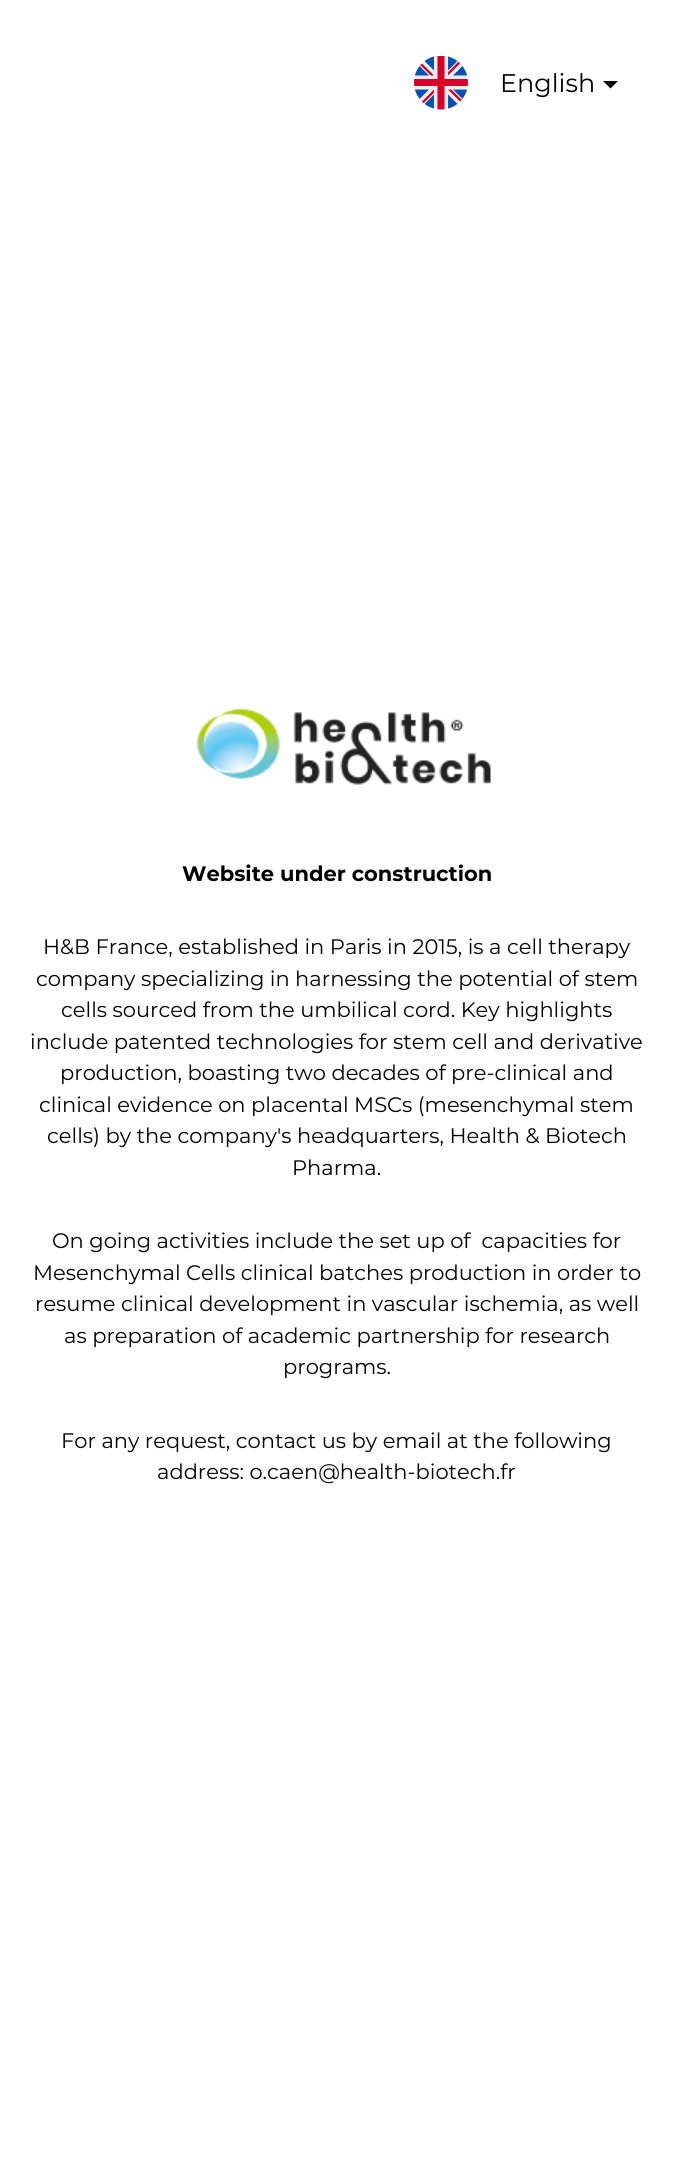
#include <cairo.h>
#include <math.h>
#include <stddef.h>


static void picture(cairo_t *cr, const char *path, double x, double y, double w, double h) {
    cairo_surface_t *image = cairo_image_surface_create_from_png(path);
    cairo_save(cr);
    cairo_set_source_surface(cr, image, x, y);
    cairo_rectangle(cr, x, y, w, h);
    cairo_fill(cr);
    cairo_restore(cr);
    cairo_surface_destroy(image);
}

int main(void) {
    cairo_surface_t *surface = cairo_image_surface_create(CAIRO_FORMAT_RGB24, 673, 2178);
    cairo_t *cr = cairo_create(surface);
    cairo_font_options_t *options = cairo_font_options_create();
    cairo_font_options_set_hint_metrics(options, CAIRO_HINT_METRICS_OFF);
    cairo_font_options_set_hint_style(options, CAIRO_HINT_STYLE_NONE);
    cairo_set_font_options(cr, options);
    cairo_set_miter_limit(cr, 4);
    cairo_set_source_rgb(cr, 1, 1, 1);
    cairo_paint(cr);
    picture(cr, "img1.png", 414, 56, 54, 54);
    cairo_select_font_face(cr, "Montserrat", CAIRO_FONT_SLANT_NORMAL, CAIRO_FONT_WEIGHT_NORMAL);
    cairo_set_font_size(cr, 25.5);
    cairo_set_source_rgb(cr, 0.008, 0.008, 0.008);
    cairo_move_to(cr, 500, 92);
    cairo_show_text(cr, "English");
    cairo_new_path(cr);
    cairo_move_to(cr, 603, 81);
    cairo_line_to(cr, 618, 81);
    cairo_line_to(cr, 610.5, 88.5);
    cairo_close_path(cr);
    cairo_fill(cr);
    picture(cr, "img2.png", 196, 706, 295, 79);
    cairo_select_font_face(cr, "Montserrat", CAIRO_FONT_SLANT_NORMAL, CAIRO_FONT_WEIGHT_BOLD);
    cairo_set_font_size(cr, 21);
    cairo_move_to(cr, 182, 881);
    cairo_show_text(cr, "Website under construction");
    cairo_select_font_face(cr, "Montserrat", CAIRO_FONT_SLANT_NORMAL, CAIRO_FONT_WEIGHT_NORMAL);
    cairo_move_to(cr, 43, 954);
    cairo_show_text(cr, "H&B France, established in Paris in 2015, is a cell therapy");
    cairo_move_to(cr, 36, 986);
    cairo_show_text(cr, "company specializing in harnessing the potential of stem");
    cairo_move_to(cr, 61, 1017);
    cairo_show_text(cr, "cells sourced from the umbilical cord. Key highlights");
    cairo_move_to(cr, 30, 1049);
    cairo_show_text(cr, "include patented technologies for stem cell and derivative");
    cairo_move_to(cr, 60, 1080);
    cairo_show_text(cr, "production, boasting two decades of pre-clinical and");
    cairo_move_to(cr, 39, 1112);
    cairo_show_text(cr, "clinical evidence on placental MSCs (mesenchymal stem");
    cairo_move_to(cr, 47, 1143);
    cairo_show_text(cr, "cells) by the company's headquarters, Health & Biotech");
    cairo_move_to(cr, 292, 1175);
    cairo_show_text(cr, "Pharma.");
    cairo_move_to(cr, 52, 1248);
    cairo_show_text(cr, "On going activities include the set up of  capacities for");
    cairo_move_to(cr, 33, 1280);
    cairo_show_text(cr, "Mesenchymal Cells clinical batches production in order to");
    cairo_move_to(cr, 35, 1311);
    cairo_show_text(cr, "resume clinical development in vascular ischemia, as well");
    cairo_move_to(cr, 64, 1343);
    cairo_show_text(cr, "as preparation of academic partnership for research");
    cairo_move_to(cr, 283, 1374);
    cairo_show_text(cr, "programs.");
    cairo_move_to(cr, 61, 1448);
    cairo_show_text(cr, "For any request, contact us by email at the following");
    cairo_move_to(cr, 157, 1479);
    cairo_show_text(cr, "address: o.caen@health-biotech.fr");
    cairo_surface_write_to_png(surface, "page.png");
    cairo_font_options_destroy(options);
    cairo_destroy(cr);
    cairo_surface_destroy(surface);
    return 0;
}
